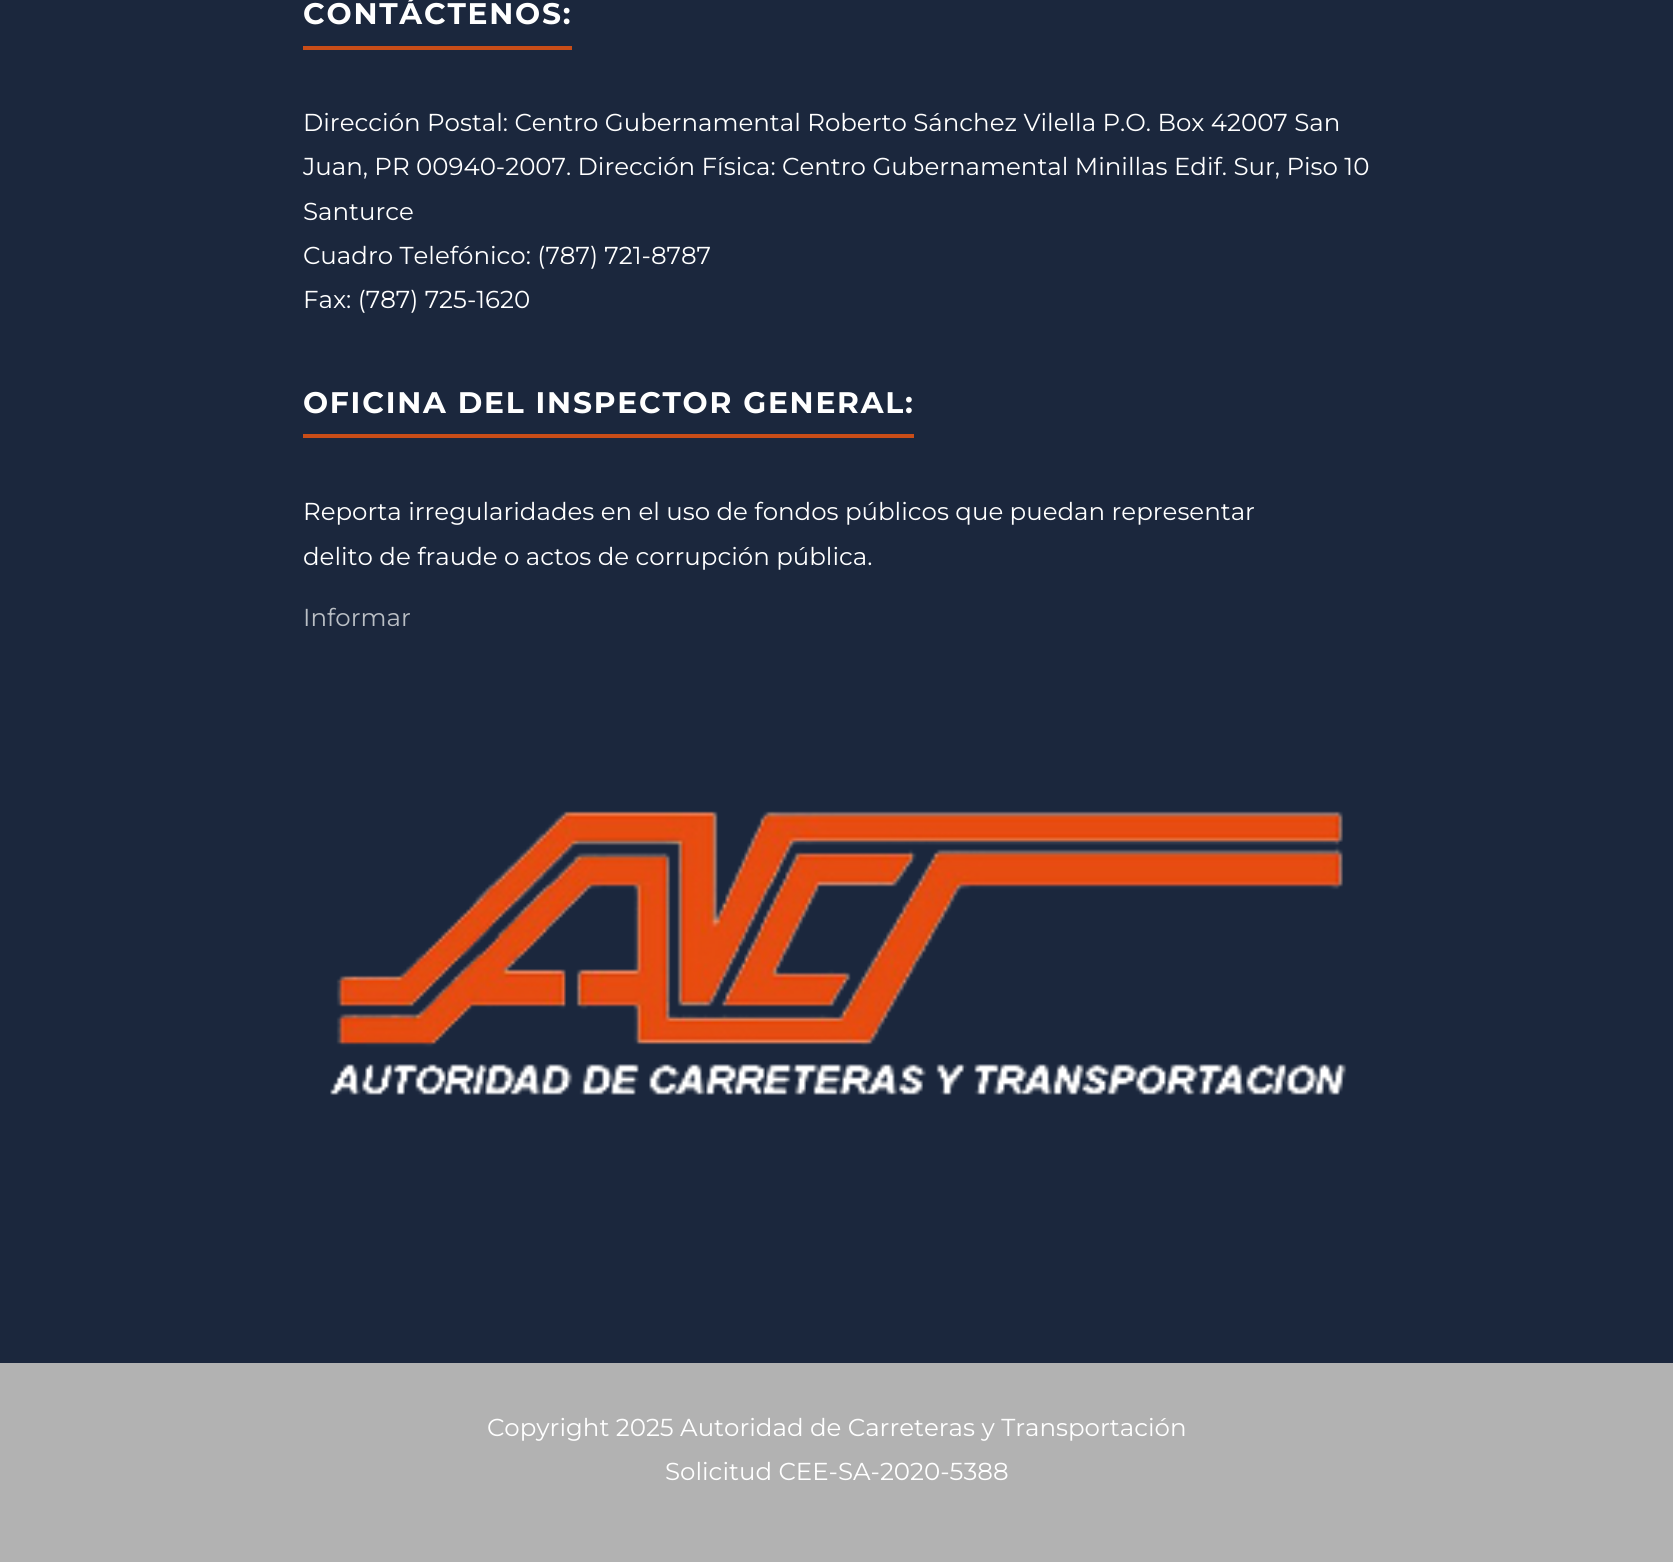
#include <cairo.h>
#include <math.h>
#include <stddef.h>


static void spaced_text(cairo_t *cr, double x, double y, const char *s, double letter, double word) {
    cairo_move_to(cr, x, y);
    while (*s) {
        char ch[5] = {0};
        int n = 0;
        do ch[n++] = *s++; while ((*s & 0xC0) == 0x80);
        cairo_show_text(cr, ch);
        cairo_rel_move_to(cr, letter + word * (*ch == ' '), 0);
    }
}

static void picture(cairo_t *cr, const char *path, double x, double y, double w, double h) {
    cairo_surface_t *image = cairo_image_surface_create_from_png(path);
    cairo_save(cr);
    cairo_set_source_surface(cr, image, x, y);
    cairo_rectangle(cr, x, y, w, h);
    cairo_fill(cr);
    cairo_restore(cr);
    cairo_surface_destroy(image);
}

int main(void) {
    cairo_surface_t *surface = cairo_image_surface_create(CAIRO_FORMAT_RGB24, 1673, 1562);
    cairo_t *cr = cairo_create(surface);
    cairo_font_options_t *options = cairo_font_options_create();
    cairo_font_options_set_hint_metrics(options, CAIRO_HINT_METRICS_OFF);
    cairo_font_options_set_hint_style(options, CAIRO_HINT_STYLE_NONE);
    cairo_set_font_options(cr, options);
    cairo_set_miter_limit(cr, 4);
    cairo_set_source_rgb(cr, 0.106, 0.153, 0.239);
    cairo_paint(cr);
    cairo_select_font_face(cr, "Montserrat", CAIRO_FONT_SLANT_NORMAL, CAIRO_FONT_WEIGHT_BOLD);
    cairo_set_font_size(cr, 29.75);
    cairo_set_source_rgb(cr, 1, 1, 1);
    spaced_text(cr, 303, 24, "CONTÁCTENOS:", 1.75, 0);
    cairo_set_source_rgb(cr, 0.788, 0.302, 0.094);
    cairo_rectangle(cr, 303, 46, 269, 4);
    cairo_fill(cr);
    cairo_select_font_face(cr, "Montserrat Thin", CAIRO_FONT_SLANT_NORMAL, CAIRO_FONT_WEIGHT_NORMAL);
    cairo_set_font_size(cr, 24.5);
    cairo_set_source_rgb(cr, 1, 1, 1);
    cairo_move_to(cr, 303, 131);
    cairo_show_text(cr, "Dirección Postal: Centro Gubernamental Roberto Sánchez Vilella P.O. Box 42007 San");
    cairo_move_to(cr, 303, 175);
    cairo_show_text(cr, "Juan, PR 00940-2007. Dirección Física: Centro Gubernamental Minillas Edif. Sur, Piso 10");
    cairo_move_to(cr, 303, 220);
    cairo_show_text(cr, "Santurce");
    cairo_move_to(cr, 303, 264);
    cairo_show_text(cr, "Cuadro Telefónico: (787) 721-8787");
    cairo_move_to(cr, 303, 308);
    cairo_show_text(cr, "Fax: (787) 725-1620");
    cairo_select_font_face(cr, "Montserrat", CAIRO_FONT_SLANT_NORMAL, CAIRO_FONT_WEIGHT_BOLD);
    cairo_set_font_size(cr, 29.75);
    spaced_text(cr, 303, 413, "OFICINA DEL INSPECTOR GENERAL:", 1.75, 0);
    cairo_set_source_rgb(cr, 0.788, 0.302, 0.094);
    cairo_rectangle(cr, 303, 434, 611, 4);
    cairo_fill(cr);
    cairo_select_font_face(cr, "Montserrat Thin", CAIRO_FONT_SLANT_NORMAL, CAIRO_FONT_WEIGHT_NORMAL);
    cairo_set_font_size(cr, 24.5);
    cairo_set_source_rgb(cr, 1, 1, 1);
    cairo_move_to(cr, 303, 520);
    cairo_show_text(cr, "Reporta irregularidades en el uso de fondos públicos que puedan representar");
    cairo_move_to(cr, 303, 565);
    cairo_show_text(cr, "delito de fraude o actos de corrupción pública.");
    cairo_set_source_rgb(cr, 0.729, 0.749, 0.773);
    cairo_move_to(cr, 303, 626);
    cairo_show_text(cr, "Informar");
    picture(cr, "img1.png", 330, 811, 1017, 284);
    cairo_set_source_rgb(cr, 0.698, 0.698, 0.698);
    cairo_rectangle(cr, 0, 1363, 1673, 199);
    cairo_fill(cr);
    cairo_set_source_rgb(cr, 1, 1, 1);
    cairo_move_to(cr, 487, 1436);
    cairo_show_text(cr, "Copyright 2025 Autoridad de Carreteras y Transportación");
    cairo_move_to(cr, 665, 1480);
    cairo_show_text(cr, "Solicitud CEE-SA-2020-5388");
    cairo_surface_write_to_png(surface, "page.png");
    cairo_font_options_destroy(options);
    cairo_destroy(cr);
    cairo_surface_destroy(surface);
    return 0;
}
